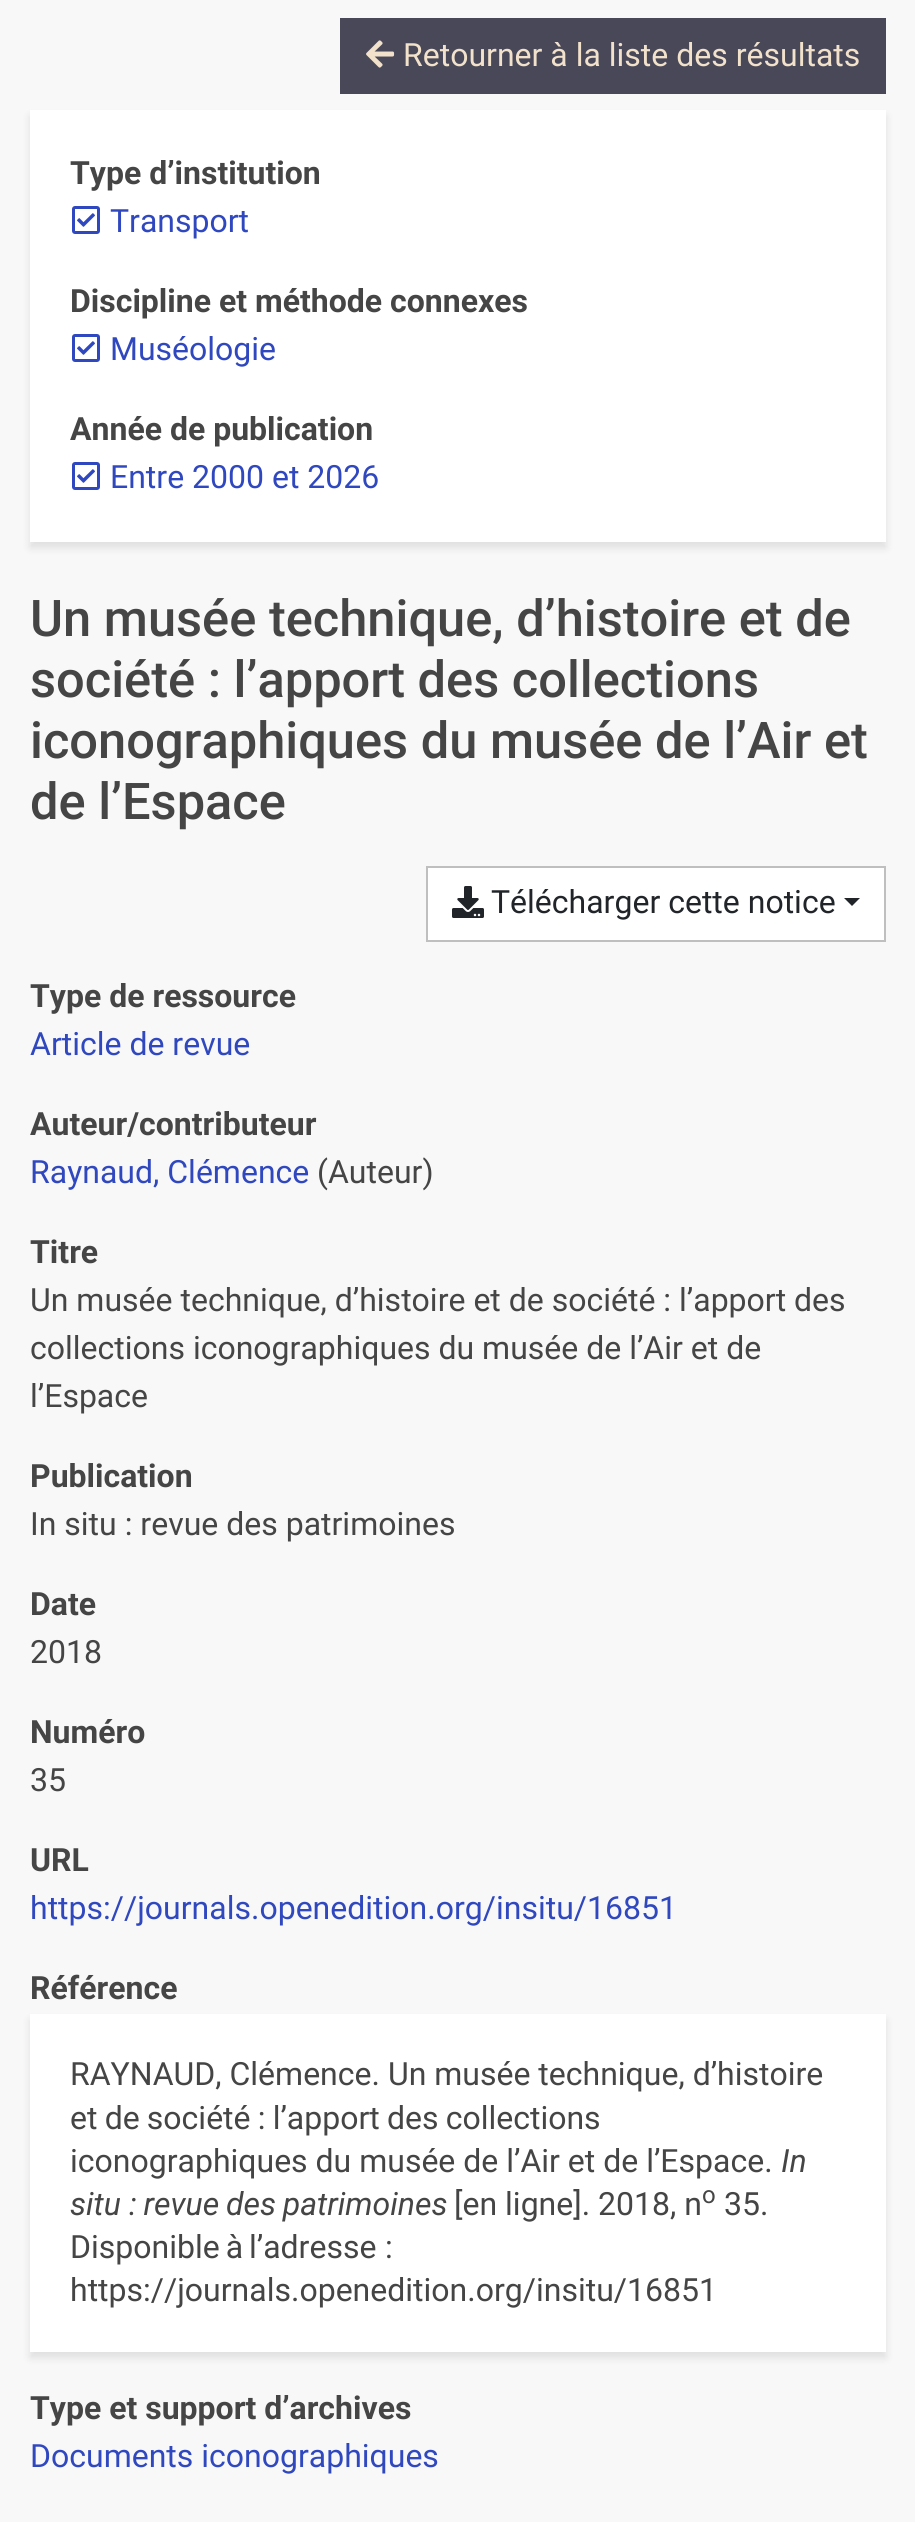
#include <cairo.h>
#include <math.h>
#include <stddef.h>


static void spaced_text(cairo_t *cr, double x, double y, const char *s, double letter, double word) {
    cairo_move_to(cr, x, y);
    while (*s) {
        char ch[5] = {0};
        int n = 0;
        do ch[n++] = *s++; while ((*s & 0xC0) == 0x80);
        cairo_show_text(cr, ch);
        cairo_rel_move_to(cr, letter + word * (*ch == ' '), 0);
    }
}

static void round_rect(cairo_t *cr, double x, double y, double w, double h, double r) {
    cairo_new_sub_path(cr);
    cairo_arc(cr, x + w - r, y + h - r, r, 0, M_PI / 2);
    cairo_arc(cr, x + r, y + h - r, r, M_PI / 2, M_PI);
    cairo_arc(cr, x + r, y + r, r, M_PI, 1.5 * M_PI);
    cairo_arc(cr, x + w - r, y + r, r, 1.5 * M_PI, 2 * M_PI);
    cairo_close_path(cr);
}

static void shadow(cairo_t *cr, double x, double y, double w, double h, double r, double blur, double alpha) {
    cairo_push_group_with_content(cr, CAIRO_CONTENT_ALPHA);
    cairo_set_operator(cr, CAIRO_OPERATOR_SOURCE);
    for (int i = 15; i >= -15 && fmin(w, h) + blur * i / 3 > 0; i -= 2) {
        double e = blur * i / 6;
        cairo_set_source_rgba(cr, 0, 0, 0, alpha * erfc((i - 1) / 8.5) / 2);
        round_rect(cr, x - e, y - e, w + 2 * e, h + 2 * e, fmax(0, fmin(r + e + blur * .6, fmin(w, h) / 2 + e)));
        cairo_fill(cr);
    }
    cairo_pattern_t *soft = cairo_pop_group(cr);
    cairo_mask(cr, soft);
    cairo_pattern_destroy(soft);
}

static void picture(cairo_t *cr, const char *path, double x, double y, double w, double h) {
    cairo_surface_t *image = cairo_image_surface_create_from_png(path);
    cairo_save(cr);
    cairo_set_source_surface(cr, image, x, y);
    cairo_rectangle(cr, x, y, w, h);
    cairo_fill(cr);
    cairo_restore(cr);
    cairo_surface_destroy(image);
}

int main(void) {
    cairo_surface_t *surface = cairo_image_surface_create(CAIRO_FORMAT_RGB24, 915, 2522);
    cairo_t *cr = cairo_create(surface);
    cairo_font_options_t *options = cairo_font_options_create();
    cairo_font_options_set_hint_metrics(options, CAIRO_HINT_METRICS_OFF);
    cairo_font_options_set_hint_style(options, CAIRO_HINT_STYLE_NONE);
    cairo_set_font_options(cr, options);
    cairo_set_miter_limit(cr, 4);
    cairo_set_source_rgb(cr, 0.969, 0.969, 0.969);
    cairo_paint(cr);
    cairo_set_source_rgb(cr, 0.282, 0.282, 0.345);
    cairo_rectangle(cr, 340, 18, 546, 76);
    cairo_fill(cr);
    picture(cr, "img1.png", 366, 40, 29, 28);
    cairo_select_font_face(cr, "Roboto", CAIRO_FONT_SLANT_NORMAL, CAIRO_FONT_WEIGHT_NORMAL);
    cairo_set_font_size(cr, 32);
    cairo_set_source_rgb(cr, 0.949, 0.882, 0.796);
    cairo_move_to(cr, 403, 66);
    cairo_show_text(cr, "Retourner à la liste des résultats");
    cairo_set_source_rgb(cr, 0, 0, 0);
    shadow(cr, 30, 116, 856, 432, 0, 4, 0.1);
    cairo_set_source_rgb(cr, 1, 1, 1);
    cairo_rectangle(cr, 30, 110, 856, 432);
    cairo_fill(cr);
    cairo_select_font_face(cr, "Roboto", CAIRO_FONT_SLANT_NORMAL, CAIRO_FONT_WEIGHT_BOLD);
    cairo_set_source_rgb(cr, 0.271, 0.271, 0.271);
    cairo_move_to(cr, 70, 184);
    cairo_show_text(cr, "Type d’institution");
    picture(cr, "img2.png", 72, 206, 28, 28);
    cairo_select_font_face(cr, "Roboto", CAIRO_FONT_SLANT_NORMAL, CAIRO_FONT_WEIGHT_NORMAL);
    cairo_set_source_rgb(cr, 0.188, 0.282, 0.749);
    cairo_move_to(cr, 110, 232);
    cairo_show_text(cr, "Transport");
    cairo_select_font_face(cr, "Roboto", CAIRO_FONT_SLANT_NORMAL, CAIRO_FONT_WEIGHT_BOLD);
    cairo_set_source_rgb(cr, 0.271, 0.271, 0.271);
    cairo_move_to(cr, 70, 312);
    cairo_show_text(cr, "Discipline et méthode connexes");
    picture(cr, "img2.png", 72, 334, 28, 28);
    cairo_select_font_face(cr, "Roboto", CAIRO_FONT_SLANT_NORMAL, CAIRO_FONT_WEIGHT_NORMAL);
    cairo_set_source_rgb(cr, 0.188, 0.282, 0.749);
    cairo_move_to(cr, 110, 360);
    cairo_show_text(cr, "Muséologie");
    cairo_select_font_face(cr, "Roboto", CAIRO_FONT_SLANT_NORMAL, CAIRO_FONT_WEIGHT_BOLD);
    cairo_set_source_rgb(cr, 0.271, 0.271, 0.271);
    cairo_move_to(cr, 70, 440);
    cairo_show_text(cr, "Année de publication");
    picture(cr, "img2.png", 72, 462, 28, 28);
    cairo_select_font_face(cr, "Roboto", CAIRO_FONT_SLANT_NORMAL, CAIRO_FONT_WEIGHT_NORMAL);
    cairo_set_source_rgb(cr, 0.188, 0.282, 0.749);
    cairo_move_to(cr, 110, 488);
    cairo_show_text(cr, "Entre 2000 et 2026");
    cairo_select_font_face(cr, "Roboto Medium", CAIRO_FONT_SLANT_NORMAL, CAIRO_FONT_WEIGHT_NORMAL);
    cairo_set_font_size(cr, 50.6);
    cairo_set_source_rgb(cr, 0.271, 0.271, 0.271);
    cairo_move_to(cr, 30, 636);
    cairo_show_text(cr, "Un musée technique, d’histoire et de");
    cairo_move_to(cr, 30, 697);
    cairo_show_text(cr, "société : l’apport des collections");
    cairo_move_to(cr, 30, 758);
    cairo_show_text(cr, "iconographiques du musée de l’Air et");
    cairo_move_to(cr, 30, 819);
    cairo_show_text(cr, "de l’Espace");
    cairo_set_source_rgb(cr, 1, 1, 1);
    cairo_rectangle(cr, 427, 867, 458, 74);
    cairo_fill_preserve(cr);
    cairo_set_source_rgb(cr, 0.749, 0.749, 0.749);
    cairo_stroke(cr);
    picture(cr, "img3.png", 452, 886, 32, 32);
    cairo_select_font_face(cr, "Roboto", CAIRO_FONT_SLANT_NORMAL, CAIRO_FONT_WEIGHT_NORMAL);
    cairo_set_font_size(cr, 32);
    cairo_set_source_rgb(cr, 0.129, 0.145, 0.161);
    cairo_move_to(cr, 491, 913);
    cairo_show_text(cr, "Télécharger cette notice");
    cairo_new_path(cr);
    cairo_move_to(cr, 844, 898);
    cairo_line_to(cr, 860, 898);
    cairo_line_to(cr, 852, 906);
    cairo_close_path(cr);
    cairo_fill(cr);
    cairo_select_font_face(cr, "Roboto", CAIRO_FONT_SLANT_NORMAL, CAIRO_FONT_WEIGHT_BOLD);
    cairo_set_source_rgb(cr, 0.271, 0.271, 0.271);
    cairo_move_to(cr, 30, 1007);
    cairo_show_text(cr, "Type de ressource");
    cairo_select_font_face(cr, "Roboto", CAIRO_FONT_SLANT_NORMAL, CAIRO_FONT_WEIGHT_NORMAL);
    cairo_set_source_rgb(cr, 0.188, 0.282, 0.749);
    cairo_move_to(cr, 30, 1055);
    cairo_show_text(cr, "Article de revue");
    cairo_select_font_face(cr, "Roboto", CAIRO_FONT_SLANT_NORMAL, CAIRO_FONT_WEIGHT_BOLD);
    cairo_set_source_rgb(cr, 0.271, 0.271, 0.271);
    cairo_move_to(cr, 30, 1135);
    cairo_show_text(cr, "Auteur/contributeur");
    cairo_select_font_face(cr, "Roboto", CAIRO_FONT_SLANT_NORMAL, CAIRO_FONT_WEIGHT_NORMAL);
    cairo_set_source_rgb(cr, 0.188, 0.282, 0.749);
    cairo_move_to(cr, 30, 1183);
    cairo_show_text(cr, "Raynaud, Clémence");
    cairo_set_source_rgb(cr, 0.271, 0.271, 0.271);
    cairo_move_to(cr, 317, 1183);
    cairo_show_text(cr, "(Auteur)");
    cairo_select_font_face(cr, "Roboto", CAIRO_FONT_SLANT_NORMAL, CAIRO_FONT_WEIGHT_BOLD);
    cairo_move_to(cr, 30, 1263);
    cairo_show_text(cr, "Titre");
    cairo_select_font_face(cr, "Roboto", CAIRO_FONT_SLANT_NORMAL, CAIRO_FONT_WEIGHT_NORMAL);
    cairo_move_to(cr, 30, 1311);
    cairo_show_text(cr, "Un musée technique, d’histoire et de société : l’apport des");
    cairo_move_to(cr, 30, 1359);
    cairo_show_text(cr, "collections iconographiques du musée de l’Air et de");
    cairo_move_to(cr, 30, 1407);
    cairo_show_text(cr, "l’Espace");
    cairo_select_font_face(cr, "Roboto", CAIRO_FONT_SLANT_NORMAL, CAIRO_FONT_WEIGHT_BOLD);
    cairo_move_to(cr, 30, 1487);
    cairo_show_text(cr, "Publication");
    cairo_select_font_face(cr, "Roboto", CAIRO_FONT_SLANT_NORMAL, CAIRO_FONT_WEIGHT_NORMAL);
    cairo_move_to(cr, 30, 1535);
    cairo_show_text(cr, "In situ : revue des patrimoines");
    cairo_select_font_face(cr, "Roboto", CAIRO_FONT_SLANT_NORMAL, CAIRO_FONT_WEIGHT_BOLD);
    cairo_move_to(cr, 30, 1615);
    cairo_show_text(cr, "Date");
    cairo_select_font_face(cr, "Roboto", CAIRO_FONT_SLANT_NORMAL, CAIRO_FONT_WEIGHT_NORMAL);
    cairo_move_to(cr, 30, 1663);
    cairo_show_text(cr, "2018");
    cairo_select_font_face(cr, "Roboto", CAIRO_FONT_SLANT_NORMAL, CAIRO_FONT_WEIGHT_BOLD);
    cairo_move_to(cr, 30, 1743);
    cairo_show_text(cr, "Numéro");
    cairo_select_font_face(cr, "Roboto", CAIRO_FONT_SLANT_NORMAL, CAIRO_FONT_WEIGHT_NORMAL);
    cairo_move_to(cr, 30, 1791);
    cairo_show_text(cr, "35");
    cairo_select_font_face(cr, "Roboto", CAIRO_FONT_SLANT_NORMAL, CAIRO_FONT_WEIGHT_BOLD);
    cairo_move_to(cr, 30, 1871);
    cairo_show_text(cr, "URL");
    cairo_select_font_face(cr, "Roboto", CAIRO_FONT_SLANT_NORMAL, CAIRO_FONT_WEIGHT_NORMAL);
    cairo_set_source_rgb(cr, 0.188, 0.282, 0.749);
    cairo_move_to(cr, 30, 1919);
    cairo_show_text(cr, "https://journals.openedition.org/insitu/16851");
    cairo_select_font_face(cr, "Roboto", CAIRO_FONT_SLANT_NORMAL, CAIRO_FONT_WEIGHT_BOLD);
    cairo_set_source_rgb(cr, 0.271, 0.271, 0.271);
    cairo_move_to(cr, 30, 1999);
    cairo_show_text(cr, "Référence");
    cairo_set_source_rgb(cr, 0, 0, 0);
    shadow(cr, 30, 2020, 856, 338, 0, 4, 0.1);
    cairo_set_source_rgb(cr, 1, 1, 1);
    cairo_rectangle(cr, 30, 2014, 856, 338);
    cairo_fill(cr);
    cairo_select_font_face(cr, "Roboto", CAIRO_FONT_SLANT_NORMAL, CAIRO_FONT_WEIGHT_NORMAL);
    cairo_set_source_rgb(cr, 0.271, 0.271, 0.271);
    cairo_move_to(cr, 70, 2085);
    cairo_show_text(cr, "RAYNAUD, Clémence. Un musée technique, d’histoire");
    spaced_text(cr, 70, 2129, "et de société : l’apport des collections", 0, -0.75);
    cairo_move_to(cr, 70, 2172);
    cairo_show_text(cr, "iconographiques du musée de l’Air et de l’Espace.");
    cairo_select_font_face(cr, "Roboto", CAIRO_FONT_SLANT_ITALIC, CAIRO_FONT_WEIGHT_NORMAL);
    cairo_move_to(cr, 781, 2172);
    cairo_show_text(cr, "In");
    cairo_move_to(cr, 70, 2215);
    cairo_show_text(cr, "situ");
    spaced_text(cr, 129, 2215, ": revue des patrimoines", 0, -1);
    cairo_select_font_face(cr, "Roboto", CAIRO_FONT_SLANT_NORMAL, CAIRO_FONT_WEIGHT_NORMAL);
    cairo_move_to(cr, 454, 2215);
    cairo_show_text(cr, "[en ligne]. 2018, n");
    cairo_set_font_size(cr, 24);
    cairo_move_to(cr, 702, 2203);
    cairo_show_text(cr, "o");
    cairo_set_font_size(cr, 32);
    cairo_move_to(cr, 724, 2215);
    cairo_show_text(cr, "35.");
    spaced_text(cr, 70, 2258, "Disponible à l’adresse", 0, -2);
    cairo_move_to(cr, 385, 2258);
    cairo_show_text(cr, ":");
    cairo_move_to(cr, 70, 2301);
    cairo_show_text(cr, "https://journals.openedition.org/insitu/16851");
    cairo_select_font_face(cr, "Roboto", CAIRO_FONT_SLANT_NORMAL, CAIRO_FONT_WEIGHT_BOLD);
    cairo_move_to(cr, 30, 2419);
    cairo_show_text(cr, "Type et support d’archives");
    cairo_select_font_face(cr, "Roboto", CAIRO_FONT_SLANT_NORMAL, CAIRO_FONT_WEIGHT_NORMAL);
    cairo_set_source_rgb(cr, 0.188, 0.282, 0.749);
    cairo_move_to(cr, 30, 2467);
    cairo_show_text(cr, "Documents iconographiques");
    cairo_surface_write_to_png(surface, "page.png");
    cairo_font_options_destroy(options);
    cairo_destroy(cr);
    cairo_surface_destroy(surface);
    return 0;
}
